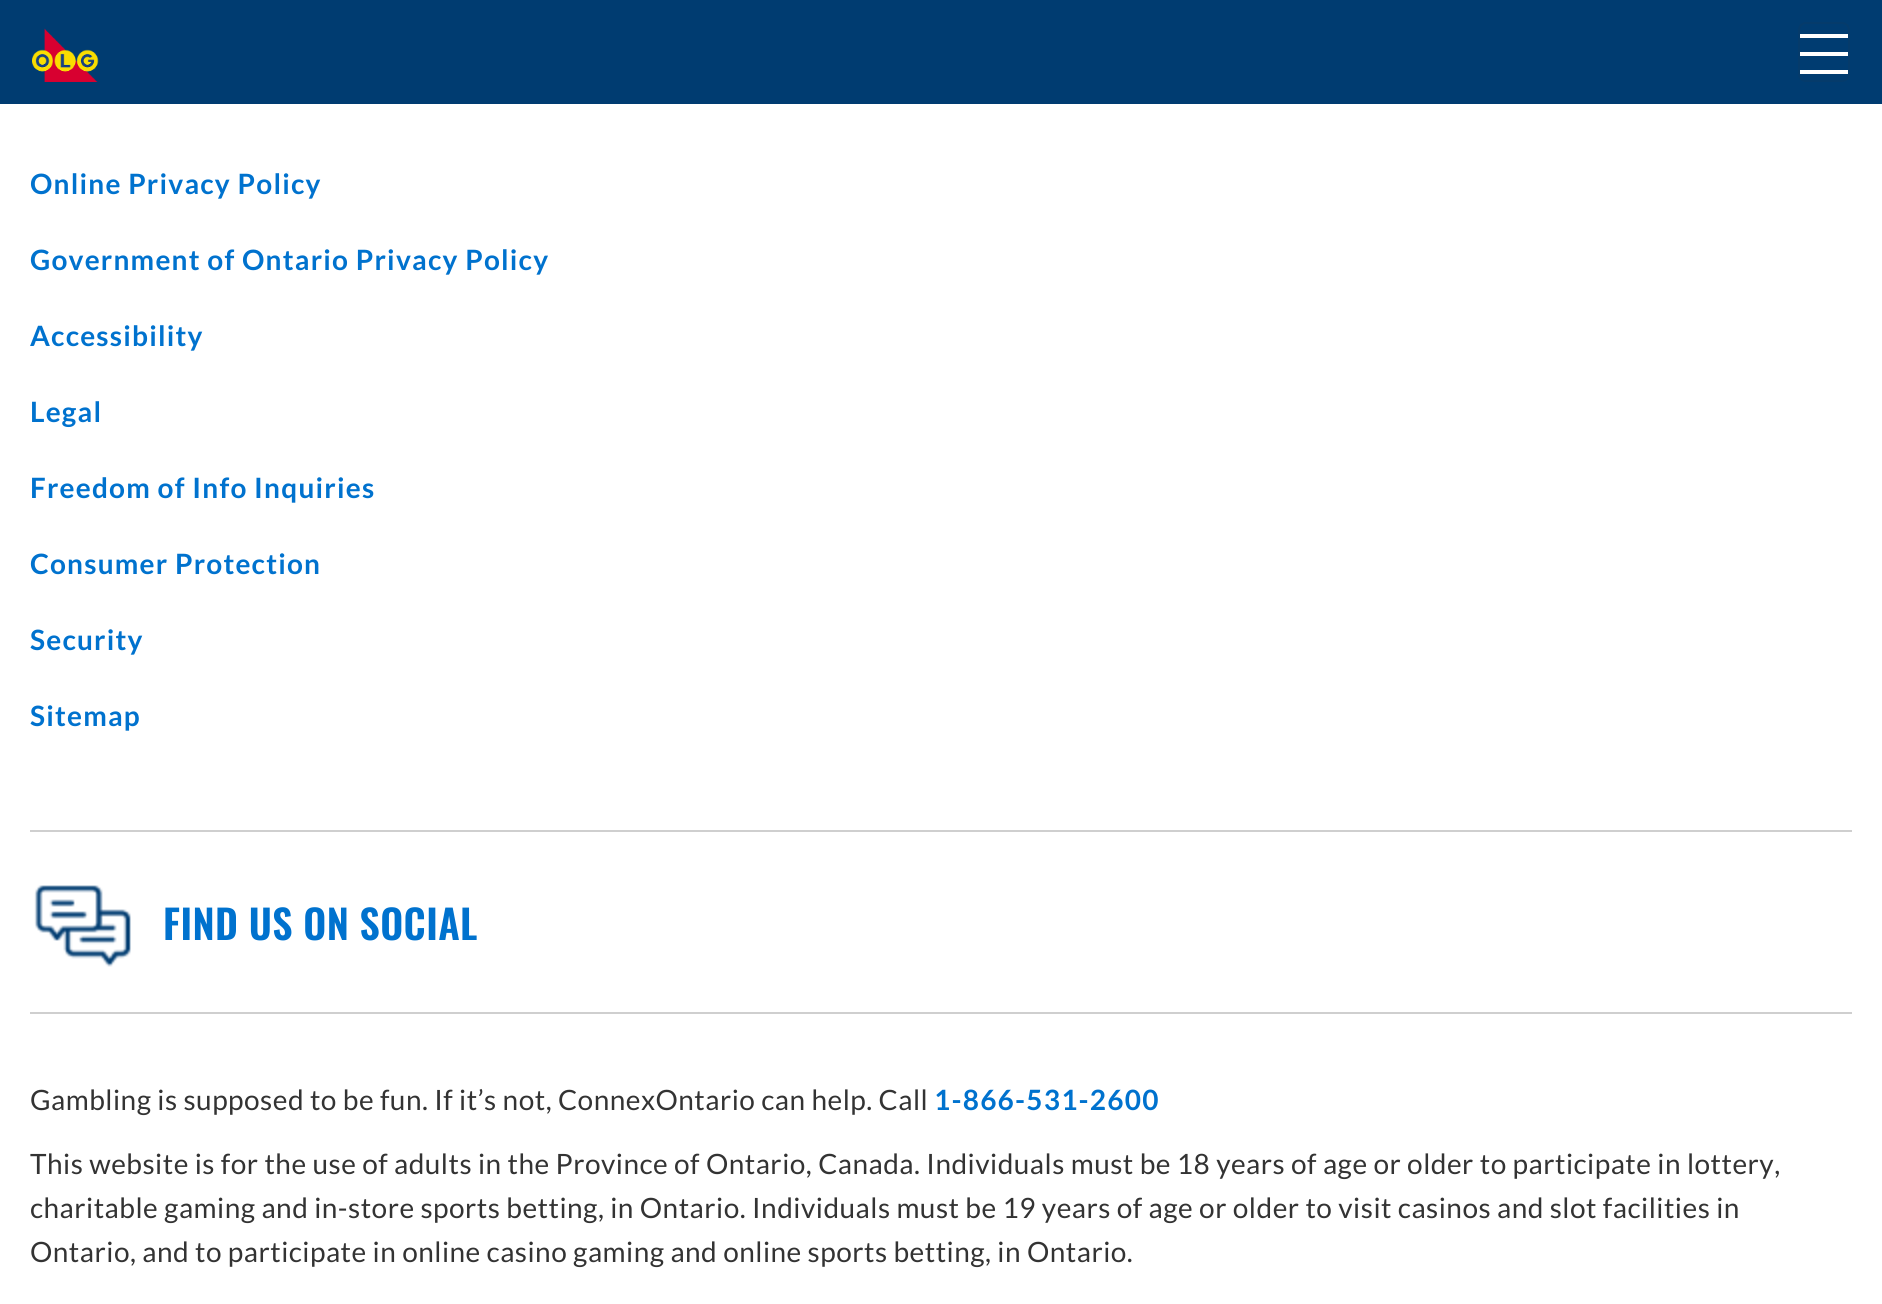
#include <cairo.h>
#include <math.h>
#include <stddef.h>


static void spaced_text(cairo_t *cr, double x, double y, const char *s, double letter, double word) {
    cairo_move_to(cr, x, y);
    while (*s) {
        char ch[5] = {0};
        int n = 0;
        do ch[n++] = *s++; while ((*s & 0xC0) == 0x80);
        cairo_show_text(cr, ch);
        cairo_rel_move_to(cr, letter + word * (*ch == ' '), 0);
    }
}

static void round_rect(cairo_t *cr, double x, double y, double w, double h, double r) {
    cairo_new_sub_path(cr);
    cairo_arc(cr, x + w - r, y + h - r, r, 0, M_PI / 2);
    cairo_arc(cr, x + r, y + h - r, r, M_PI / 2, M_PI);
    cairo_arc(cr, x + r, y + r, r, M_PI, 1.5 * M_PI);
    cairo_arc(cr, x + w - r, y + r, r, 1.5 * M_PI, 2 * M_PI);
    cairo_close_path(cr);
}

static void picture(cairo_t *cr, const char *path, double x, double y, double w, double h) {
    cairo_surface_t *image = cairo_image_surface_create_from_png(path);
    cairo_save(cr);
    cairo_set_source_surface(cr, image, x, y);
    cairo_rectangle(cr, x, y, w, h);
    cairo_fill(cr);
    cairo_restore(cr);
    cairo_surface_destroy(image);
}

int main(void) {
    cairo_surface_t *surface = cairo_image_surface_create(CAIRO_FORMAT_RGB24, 1882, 1304);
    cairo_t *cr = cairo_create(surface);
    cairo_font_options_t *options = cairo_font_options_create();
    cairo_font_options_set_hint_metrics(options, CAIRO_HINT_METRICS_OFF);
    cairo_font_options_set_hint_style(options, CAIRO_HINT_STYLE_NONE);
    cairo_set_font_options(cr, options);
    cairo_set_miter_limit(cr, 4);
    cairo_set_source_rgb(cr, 1, 1, 1);
    cairo_paint(cr);
    cairo_set_source_rgb(cr, 0, 0.235, 0.443);
    cairo_rectangle(cr, 0, 0, 1882, 104);
    cairo_fill(cr);
    picture(cr, "img1.png", 32, 28, 67, 54);
    round_rect(cr, 1799, 23, 50, 58, 7);
    cairo_set_source_rgb(cr, 0.02, 0.231, 0.42);
    cairo_stroke(cr);
    cairo_set_source_rgb(cr, 1, 1, 1);
    cairo_rectangle(cr, 1800, 34, 48, 4);
    cairo_fill(cr);
    cairo_rectangle(cr, 1800, 52, 48, 4);
    cairo_fill(cr);
    cairo_rectangle(cr, 1800, 70, 48, 4);
    cairo_fill(cr);
    cairo_select_font_face(cr, "Lato", CAIRO_FONT_SLANT_NORMAL, CAIRO_FONT_WEIGHT_BOLD);
    cairo_set_font_size(cr, 28);
    cairo_set_source_rgb(cr, 0, 0.447, 0.808);
    spaced_text(cr, 30, 194, "Online Privacy Policy", 1.2, 0);
    spaced_text(cr, 30, 270, "Government of Ontario Privacy Policy", 1.2, 0);
    spaced_text(cr, 30, 346, "Accessibility", 1.2, 0);
    spaced_text(cr, 30, 422, "Legal", 1.2, 0);
    spaced_text(cr, 30, 498, "Freedom of Info Inquiries", 1.2, 0);
    spaced_text(cr, 30, 574, "Consumer Protection", 1.2, 0);
    spaced_text(cr, 30, 650, "Security", 1.2, 0);
    spaced_text(cr, 30, 726, "Sitemap", 1.2, 0);
    cairo_set_source_rgb(cr, 0.812, 0.812, 0.812);
    cairo_rectangle(cr, 30, 830, 1822, 2);
    cairo_fill(cr);
    cairo_rectangle(cr, 30, 1012, 1822, 2);
    cairo_fill(cr);
    picture(cr, "img2.png", 34, 885, 97, 82);
    cairo_select_font_face(cr, "Oswald SemiBold", CAIRO_FONT_SLANT_NORMAL, CAIRO_FONT_WEIGHT_NORMAL);
    cairo_set_font_size(cr, 40);
    cairo_set_source_rgb(cr, 0, 0.447, 0.808);
    spaced_text(cr, 163, 940, "FIND US ON SOCIAL", 0.4, 0);
    cairo_select_font_face(cr, "Lato", CAIRO_FONT_SLANT_NORMAL, CAIRO_FONT_WEIGHT_NORMAL);
    cairo_set_font_size(cr, 28);
    cairo_set_source_rgb(cr, 0.2, 0.2, 0.2);
    spaced_text(cr, 30, 1110, "Gambling is supposed to be fun. If it’s not, ConnexOntario can help. Call", 0.48, 0);
    cairo_select_font_face(cr, "Lato", CAIRO_FONT_SLANT_NORMAL, CAIRO_FONT_WEIGHT_BOLD);
    cairo_set_source_rgb(cr, 0, 0.447, 0.808);
    spaced_text(cr, 934, 1110, "1-866-531-2600", 1.2, 0);
    cairo_select_font_face(cr, "Lato", CAIRO_FONT_SLANT_NORMAL, CAIRO_FONT_WEIGHT_NORMAL);
    cairo_set_source_rgb(cr, 0.2, 0.2, 0.2);
    spaced_text(cr, 30, 1174, "This website is for the use of adults in the Province of Ontario, Canada. Individuals must be 18 years of age or older to participate in lottery,", 0.48, 0);
    spaced_text(cr, 30, 1218, "charitable gaming and in-store sports betting, in Ontario. Individuals must be 19 years of age or older to visit casinos and slot facilities in", 0.48, 0);
    spaced_text(cr, 30, 1262, "Ontario, and to participate in online casino gaming and online sports betting, in Ontario.", 0.48, 0);
    cairo_surface_write_to_png(surface, "page.png");
    cairo_font_options_destroy(options);
    cairo_destroy(cr);
    cairo_surface_destroy(surface);
    return 0;
}
